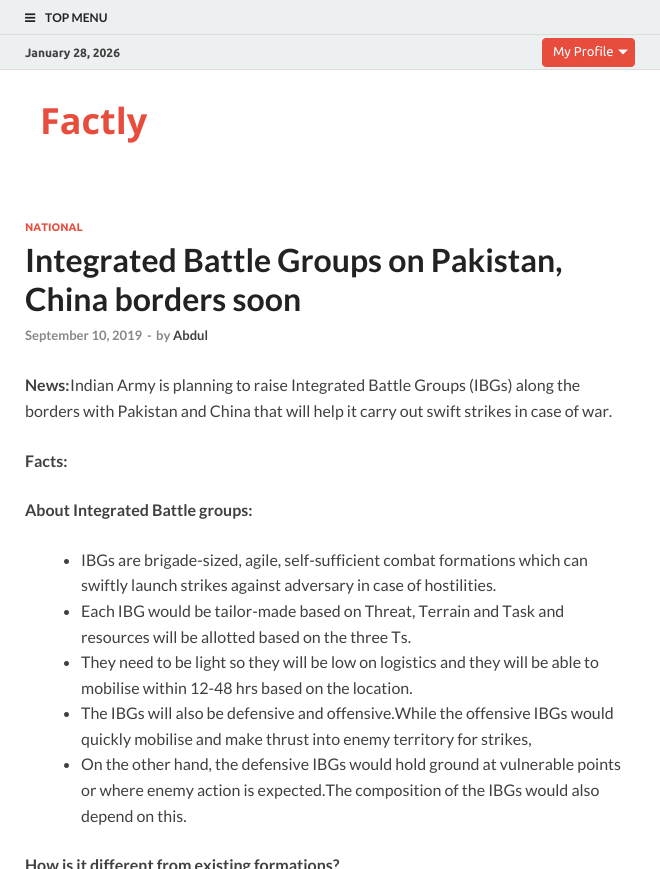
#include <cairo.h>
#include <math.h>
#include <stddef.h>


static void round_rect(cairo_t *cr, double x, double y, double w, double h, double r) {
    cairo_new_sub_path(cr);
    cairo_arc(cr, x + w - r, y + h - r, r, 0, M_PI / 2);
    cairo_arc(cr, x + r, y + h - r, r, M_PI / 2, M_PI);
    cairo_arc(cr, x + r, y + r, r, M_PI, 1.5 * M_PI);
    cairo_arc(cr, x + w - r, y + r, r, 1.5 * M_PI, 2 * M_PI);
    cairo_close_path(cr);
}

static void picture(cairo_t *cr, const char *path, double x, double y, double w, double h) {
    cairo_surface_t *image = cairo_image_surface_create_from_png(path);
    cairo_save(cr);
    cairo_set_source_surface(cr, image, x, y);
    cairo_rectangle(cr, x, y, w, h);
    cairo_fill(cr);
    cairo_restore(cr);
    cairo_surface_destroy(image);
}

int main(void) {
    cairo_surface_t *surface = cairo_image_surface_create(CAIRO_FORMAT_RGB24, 660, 869);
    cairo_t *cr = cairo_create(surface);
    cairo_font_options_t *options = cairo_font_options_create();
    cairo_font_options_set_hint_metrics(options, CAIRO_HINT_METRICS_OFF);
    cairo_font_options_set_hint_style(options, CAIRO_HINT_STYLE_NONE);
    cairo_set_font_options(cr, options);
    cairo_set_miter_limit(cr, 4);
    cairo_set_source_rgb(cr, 1, 1, 1);
    cairo_paint(cr);
    cairo_set_source_rgb(cr, 0.925, 0.941, 0.945);
    cairo_rectangle(cr, 0, 0, 660, 34);
    cairo_fill(cr);
    cairo_set_source_rgb(cr, 0.867, 0.867, 0.867);
    cairo_rectangle(cr, 0, 34, 660, 1);
    cairo_fill(cr);
    picture(cr, "img1.png", 25, 13, 11, 9);
    cairo_select_font_face(cr, "Lato", CAIRO_FONT_SLANT_NORMAL, CAIRO_FONT_WEIGHT_BOLD);
    cairo_set_font_size(cr, 12);
    cairo_set_source_rgb(cr, 0.133, 0.133, 0.133);
    cairo_move_to(cr, 45, 22);
    cairo_show_text(cr, "TOP MENU");
    cairo_set_source_rgb(cr, 0.925, 0.941, 0.945);
    cairo_rectangle(cr, 0, 35, 660, 34);
    cairo_fill(cr);
    cairo_set_source_rgb(cr, 0.867, 0.867, 0.867);
    cairo_rectangle(cr, 0, 69, 660, 1);
    cairo_fill(cr);
    cairo_select_font_face(cr, "Ubuntu", CAIRO_FONT_SLANT_NORMAL, CAIRO_FONT_WEIGHT_BOLD);
    cairo_set_source_rgb(cr, 0.251, 0.251, 0.251);
    cairo_move_to(cr, 25, 57);
    cairo_show_text(cr, "January 28, 2026");
    cairo_set_source_rgb(cr, 0.906, 0.298, 0.235);
    round_rect(cr, 542.5, 38.5, 92, 28, 3.5);
    cairo_fill_preserve(cr);
    cairo_set_line_width(cr, 1);
    cairo_stroke(cr);
    cairo_select_font_face(cr, "Ubuntu", CAIRO_FONT_SLANT_NORMAL, CAIRO_FONT_WEIGHT_NORMAL);
    cairo_set_font_size(cr, 13);
    cairo_set_source_rgb(cr, 1, 1, 1);
    cairo_move_to(cr, 553, 56);
    cairo_show_text(cr, "My Profile");
    cairo_new_path(cr);
    cairo_move_to(cr, 618, 49.5);
    cairo_line_to(cr, 628, 49.5);
    cairo_line_to(cr, 623, 54.5);
    cairo_close_path(cr);
    cairo_fill(cr);
    cairo_select_font_face(cr, "Open Sans", CAIRO_FONT_SLANT_NORMAL, CAIRO_FONT_WEIGHT_BOLD);
    cairo_set_font_size(cr, 36);
    cairo_set_source_rgb(cr, 0.906, 0.298, 0.235);
    cairo_move_to(cr, 40, 134);
    cairo_show_text(cr, "Factly");
    cairo_select_font_face(cr, "Ubuntu", CAIRO_FONT_SLANT_NORMAL, CAIRO_FONT_WEIGHT_BOLD);
    cairo_set_font_size(cr, 11);
    cairo_move_to(cr, 25, 231);
    cairo_show_text(cr, "NATIONAL");
    cairo_select_font_face(cr, "Lato", CAIRO_FONT_SLANT_NORMAL, CAIRO_FONT_WEIGHT_BOLD);
    cairo_set_font_size(cr, 32);
    cairo_set_source_rgb(cr, 0.133, 0.133, 0.133);
    cairo_move_to(cr, 25, 272);
    cairo_show_text(cr, "Integrated Battle Groups on Pakistan,");
    cairo_move_to(cr, 25, 311);
    cairo_show_text(cr, "China borders soon");
    cairo_set_font_size(cr, 13);
    cairo_set_source_rgb(cr, 0.533, 0.533, 0.533);
    cairo_move_to(cr, 25, 340);
    cairo_show_text(cr, "September 10, 2019");
    cairo_move_to(cr, 147, 340);
    cairo_show_text(cr, "-");
    cairo_move_to(cr, 156, 340);
    cairo_show_text(cr, "by");
    cairo_set_source_rgb(cr, 0.251, 0.251, 0.251);
    cairo_move_to(cr, 173, 340);
    cairo_show_text(cr, "Abdul");
    cairo_set_font_size(cr, 16);
    cairo_move_to(cr, 25, 391);
    cairo_show_text(cr, "News:");
    cairo_select_font_face(cr, "Lato", CAIRO_FONT_SLANT_NORMAL, CAIRO_FONT_WEIGHT_NORMAL);
    cairo_move_to(cr, 70, 391);
    cairo_show_text(cr, "Indian Army is planning to raise Integrated Battle Groups (IBGs) along the");
    cairo_move_to(cr, 25, 417);
    cairo_show_text(cr, "borders with Pakistan and China that will help it carry out swift strikes in case of war.");
    cairo_select_font_face(cr, "Lato", CAIRO_FONT_SLANT_NORMAL, CAIRO_FONT_WEIGHT_BOLD);
    cairo_move_to(cr, 25, 467);
    cairo_show_text(cr, "Facts:");
    cairo_move_to(cr, 25, 516);
    cairo_show_text(cr, "About Integrated Battle groups:");
    cairo_new_path(cr);
    cairo_arc(cr, 66.5, 561.5, 2.5, 0, 2 * M_PI);
    cairo_fill(cr);
    cairo_select_font_face(cr, "Lato", CAIRO_FONT_SLANT_NORMAL, CAIRO_FONT_WEIGHT_NORMAL);
    cairo_move_to(cr, 81, 566);
    cairo_show_text(cr, "IBGs are brigade-sized, agile, self-sufficient combat formations which can");
    cairo_move_to(cr, 81, 591);
    cairo_show_text(cr, "swiftly launch strikes against adversary in case of hostilities.");
    cairo_new_path(cr);
    cairo_arc(cr, 66.5, 612.5, 2.5, 0, 2 * M_PI);
    cairo_fill(cr);
    cairo_move_to(cr, 81, 617);
    cairo_show_text(cr, "Each IBG would be tailor-made based on Threat, Terrain and Task and");
    cairo_move_to(cr, 81, 643);
    cairo_show_text(cr, "resources will be allotted based on the three Ts.");
    cairo_new_path(cr);
    cairo_arc(cr, 66.5, 663.5, 2.5, 0, 2 * M_PI);
    cairo_fill(cr);
    cairo_move_to(cr, 81, 668);
    cairo_show_text(cr, "They need to be light so they will be low on logistics and they will be able to");
    cairo_move_to(cr, 81, 694);
    cairo_show_text(cr, "mobilise within 12-48 hrs based on the location.");
    cairo_new_path(cr);
    cairo_arc(cr, 66.5, 714.5, 2.5, 0, 2 * M_PI);
    cairo_fill(cr);
    cairo_move_to(cr, 81, 719);
    cairo_show_text(cr, "The IBGs will also be defensive and offensive.While the offensive IBGs would");
    cairo_move_to(cr, 81, 745);
    cairo_show_text(cr, "quickly mobilise and make thrust into enemy territory for strikes,");
    cairo_new_path(cr);
    cairo_arc(cr, 66.5, 765.5, 2.5, 0, 2 * M_PI);
    cairo_fill(cr);
    cairo_move_to(cr, 81, 770);
    cairo_show_text(cr, "On the other hand, the defensive IBGs would hold ground at vulnerable points");
    cairo_move_to(cr, 81, 796);
    cairo_show_text(cr, "or where enemy action is expected.The composition of the IBGs would also");
    cairo_move_to(cr, 81, 822);
    cairo_show_text(cr, "depend on this.");
    cairo_select_font_face(cr, "Lato", CAIRO_FONT_SLANT_NORMAL, CAIRO_FONT_WEIGHT_BOLD);
    cairo_move_to(cr, 25, 871);
    cairo_show_text(cr, "How is it different from existing formations?");
    cairo_surface_write_to_png(surface, "page.png");
    cairo_font_options_destroy(options);
    cairo_destroy(cr);
    cairo_surface_destroy(surface);
    return 0;
}
